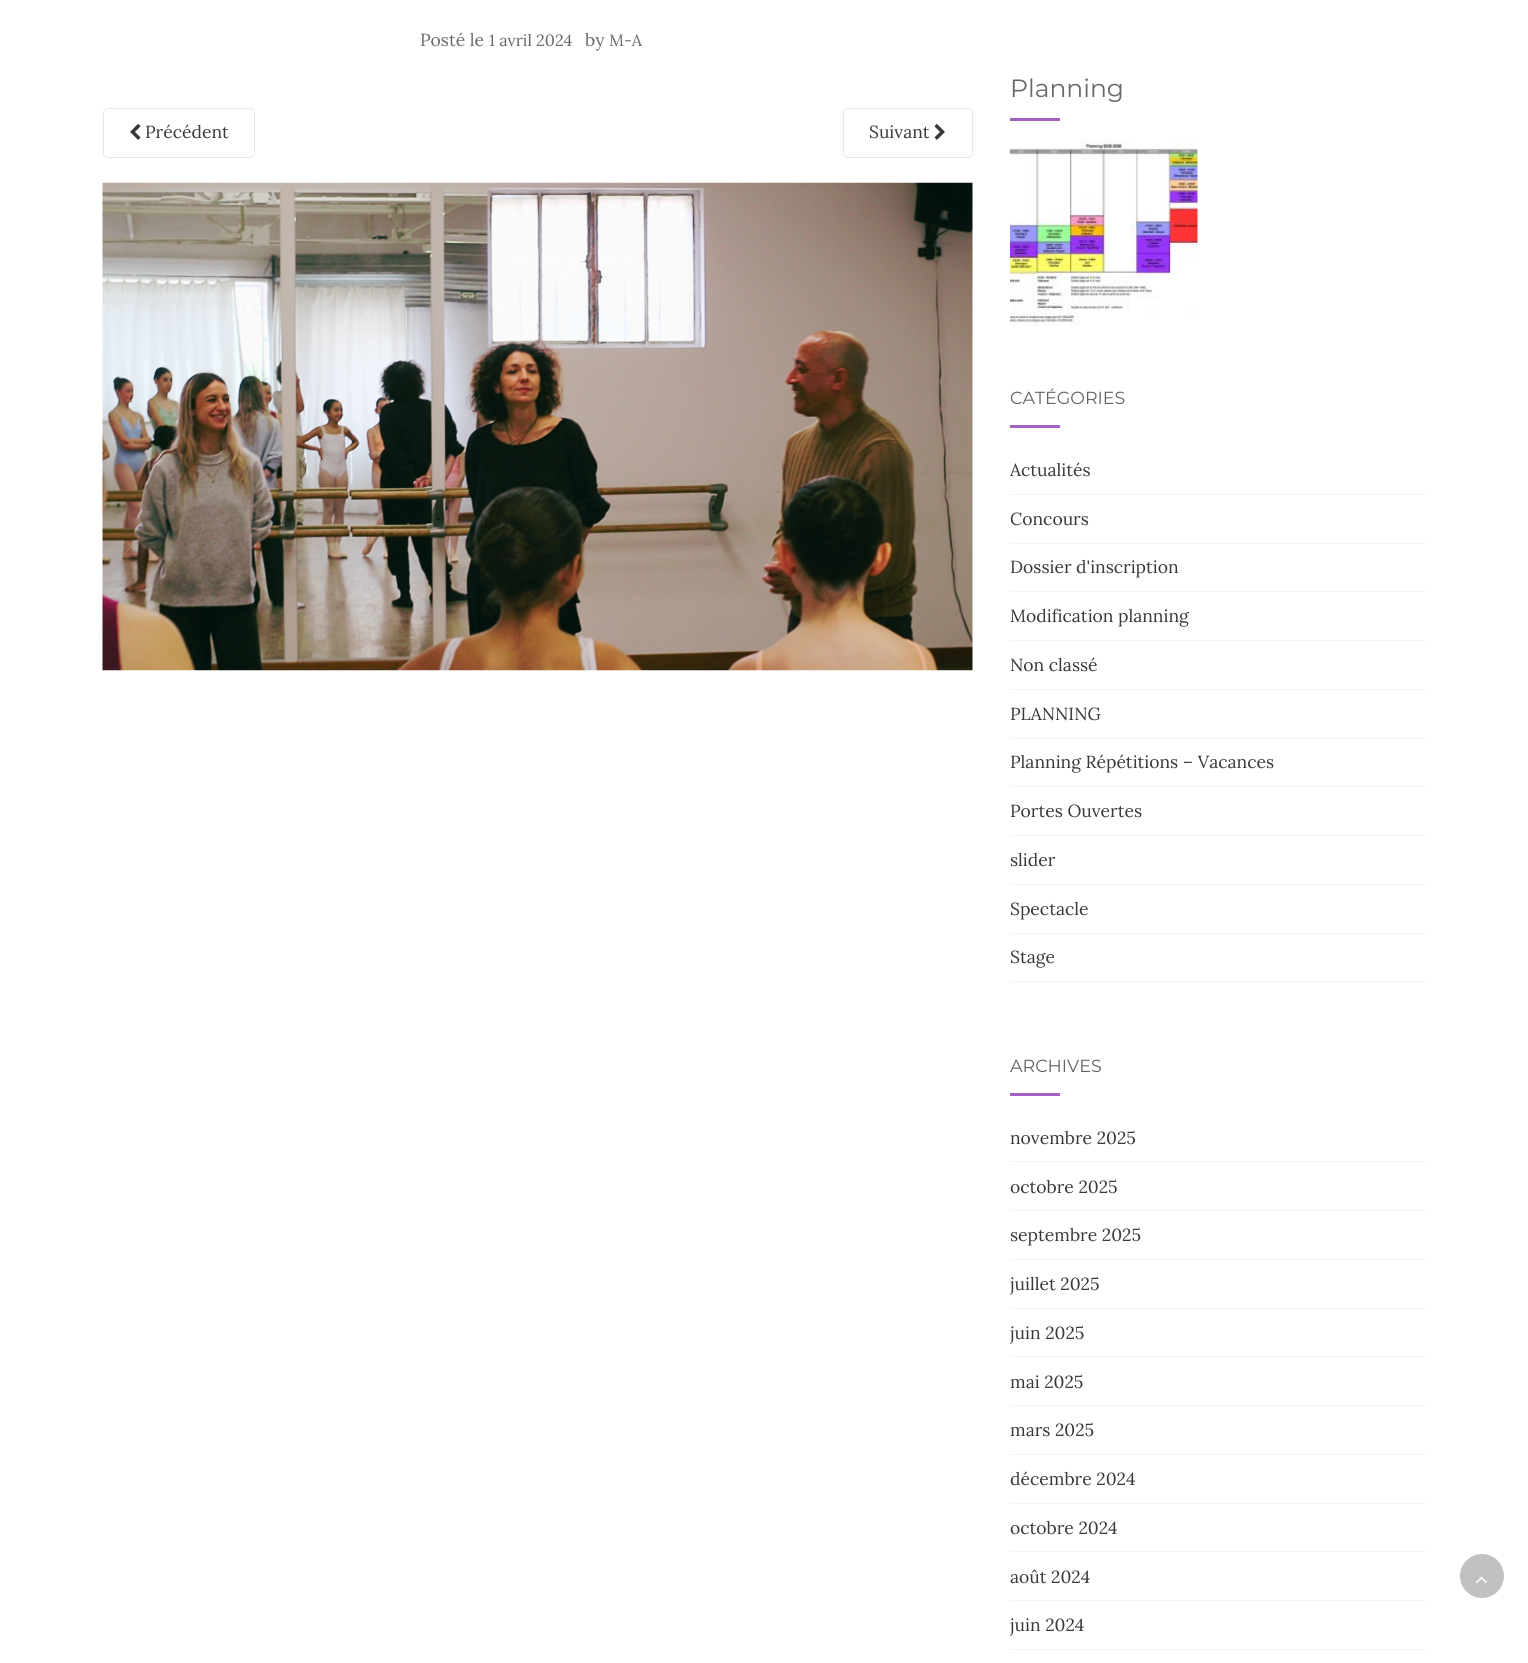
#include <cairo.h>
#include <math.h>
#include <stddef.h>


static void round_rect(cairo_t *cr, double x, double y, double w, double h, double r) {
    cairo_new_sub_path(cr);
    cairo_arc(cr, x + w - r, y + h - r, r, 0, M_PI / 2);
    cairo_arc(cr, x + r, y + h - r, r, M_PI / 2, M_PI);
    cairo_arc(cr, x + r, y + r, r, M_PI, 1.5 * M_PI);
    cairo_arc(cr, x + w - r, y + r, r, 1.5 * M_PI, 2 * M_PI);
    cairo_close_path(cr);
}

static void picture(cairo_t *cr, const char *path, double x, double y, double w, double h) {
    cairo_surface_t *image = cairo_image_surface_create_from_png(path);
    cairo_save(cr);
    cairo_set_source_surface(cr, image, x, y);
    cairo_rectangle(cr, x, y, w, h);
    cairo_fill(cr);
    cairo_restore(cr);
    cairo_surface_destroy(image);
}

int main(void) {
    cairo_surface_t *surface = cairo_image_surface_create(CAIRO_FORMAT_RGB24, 1528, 1663);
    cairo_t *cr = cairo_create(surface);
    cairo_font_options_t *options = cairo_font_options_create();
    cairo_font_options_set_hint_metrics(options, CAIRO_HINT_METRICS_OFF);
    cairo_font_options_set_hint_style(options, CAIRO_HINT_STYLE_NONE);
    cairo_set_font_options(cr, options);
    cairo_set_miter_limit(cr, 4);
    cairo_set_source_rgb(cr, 1, 1, 1);
    cairo_paint(cr);
    cairo_select_font_face(cr, "Lora", CAIRO_FONT_SLANT_NORMAL, CAIRO_FONT_WEIGHT_NORMAL);
    cairo_set_font_size(cr, 17.5);
    cairo_set_source_rgb(cr, 0.412, 0.412, 0.412);
    cairo_move_to(cr, 420, 46);
    cairo_show_text(cr, "Posté le");
    cairo_set_font_size(cr, 16.25);
    cairo_move_to(cr, 489, 46);
    cairo_show_text(cr, "1 avril 2024");
    cairo_set_font_size(cr, 17.5);
    cairo_move_to(cr, 585, 46);
    cairo_show_text(cr, "by");
    cairo_set_font_size(cr, 16.25);
    cairo_move_to(cr, 609, 46);
    cairo_show_text(cr, "M-A");
    round_rect(cr, 103.5, 108.5, 151, 49, 4.5);
    cairo_set_source_rgb(cr, 0.91, 0.91, 0.91);
    cairo_set_line_width(cr, 1);
    cairo_stroke(cr);
    picture(cr, "img1.png", 130, 124, 11, 16);
    cairo_set_font_size(cr, 17.5);
    cairo_set_source_rgb(cr, 0.224, 0.224, 0.224);
    cairo_move_to(cr, 145, 138);
    cairo_show_text(cr, "Précédent");
    round_rect(cr, 843.5, 108.5, 129, 49, 4.5);
    cairo_set_source_rgb(cr, 0.91, 0.91, 0.91);
    cairo_stroke(cr);
    cairo_set_source_rgb(cr, 0.224, 0.224, 0.224);
    cairo_move_to(cr, 869, 138);
    cairo_show_text(cr, "Suivant");
    picture(cr, "img2.png", 934, 124, 11, 16);
    picture(cr, "img3.png", 102, 182, 871, 489);
    cairo_select_font_face(cr, "Montserrat", CAIRO_FONT_SLANT_NORMAL, CAIRO_FONT_WEIGHT_NORMAL);
    cairo_set_font_size(cr, 25);
    cairo_set_source_rgb(cr, 0.412, 0.412, 0.412);
    cairo_move_to(cr, 1010, 97);
    cairo_show_text(cr, "Planning");
    cairo_set_source_rgb(cr, 0.631, 0.38, 0.749);
    cairo_rectangle(cr, 1010, 118, 50, 3);
    cairo_fill(cr);
    picture(cr, "img4.png", 1010, 139, 188, 187);
    cairo_set_font_size(cr, 17.5);
    cairo_set_source_rgb(cr, 0.388, 0.392, 0.404);
    cairo_move_to(cr, 1010, 404);
    cairo_show_text(cr, "CATÉGORIES");
    cairo_set_source_rgb(cr, 0.631, 0.38, 0.749);
    cairo_rectangle(cr, 1010, 425, 50, 3);
    cairo_fill(cr);
    cairo_set_source_rgb(cr, 0.949, 0.949, 0.949);
    cairo_rectangle(cr, 1010, 494, 416, 1);
    cairo_fill(cr);
    cairo_select_font_face(cr, "Lora", CAIRO_FONT_SLANT_NORMAL, CAIRO_FONT_WEIGHT_NORMAL);
    cairo_set_source_rgb(cr, 0.224, 0.224, 0.224);
    cairo_move_to(cr, 1010, 476);
    cairo_show_text(cr, "Actualités");
    cairo_set_source_rgb(cr, 0.949, 0.949, 0.949);
    cairo_rectangle(cr, 1010, 543, 416, 1);
    cairo_fill(cr);
    cairo_set_source_rgb(cr, 0.224, 0.224, 0.224);
    cairo_move_to(cr, 1010, 525);
    cairo_show_text(cr, "Concours");
    cairo_set_source_rgb(cr, 0.949, 0.949, 0.949);
    cairo_rectangle(cr, 1010, 591, 416, 1);
    cairo_fill(cr);
    cairo_set_source_rgb(cr, 0.224, 0.224, 0.224);
    cairo_move_to(cr, 1010, 573);
    cairo_show_text(cr, "Dossier d'inscription");
    cairo_set_source_rgb(cr, 0.949, 0.949, 0.949);
    cairo_rectangle(cr, 1010, 640, 416, 1);
    cairo_fill(cr);
    cairo_set_source_rgb(cr, 0.224, 0.224, 0.224);
    cairo_move_to(cr, 1010, 622);
    cairo_show_text(cr, "Modification planning");
    cairo_set_source_rgb(cr, 0.949, 0.949, 0.949);
    cairo_rectangle(cr, 1010, 689, 416, 1);
    cairo_fill(cr);
    cairo_set_source_rgb(cr, 0.224, 0.224, 0.224);
    cairo_move_to(cr, 1010, 671);
    cairo_show_text(cr, "Non classé");
    cairo_set_source_rgb(cr, 0.949, 0.949, 0.949);
    cairo_rectangle(cr, 1010, 738, 416, 1);
    cairo_fill(cr);
    cairo_set_source_rgb(cr, 0.224, 0.224, 0.224);
    cairo_move_to(cr, 1010, 720);
    cairo_show_text(cr, "PLANNING");
    cairo_set_source_rgb(cr, 0.949, 0.949, 0.949);
    cairo_rectangle(cr, 1010, 786, 416, 1);
    cairo_fill(cr);
    cairo_set_source_rgb(cr, 0.224, 0.224, 0.224);
    cairo_move_to(cr, 1010, 768);
    cairo_show_text(cr, "Planning Répétitions – Vacances");
    cairo_set_source_rgb(cr, 0.949, 0.949, 0.949);
    cairo_rectangle(cr, 1010, 835, 416, 1);
    cairo_fill(cr);
    cairo_set_source_rgb(cr, 0.224, 0.224, 0.224);
    cairo_move_to(cr, 1010, 817);
    cairo_show_text(cr, "Portes Ouvertes");
    cairo_set_source_rgb(cr, 0.949, 0.949, 0.949);
    cairo_rectangle(cr, 1010, 884, 416, 1);
    cairo_fill(cr);
    cairo_set_source_rgb(cr, 0.224, 0.224, 0.224);
    cairo_move_to(cr, 1010, 866);
    cairo_show_text(cr, "slider");
    cairo_set_source_rgb(cr, 0.949, 0.949, 0.949);
    cairo_rectangle(cr, 1010, 933, 416, 1);
    cairo_fill(cr);
    cairo_set_source_rgb(cr, 0.224, 0.224, 0.224);
    cairo_move_to(cr, 1010, 915);
    cairo_show_text(cr, "Spectacle");
    cairo_set_source_rgb(cr, 0.949, 0.949, 0.949);
    cairo_rectangle(cr, 1010, 981, 416, 1);
    cairo_fill(cr);
    cairo_set_source_rgb(cr, 0.224, 0.224, 0.224);
    cairo_move_to(cr, 1010, 963);
    cairo_show_text(cr, "Stage");
    cairo_select_font_face(cr, "Montserrat", CAIRO_FONT_SLANT_NORMAL, CAIRO_FONT_WEIGHT_NORMAL);
    cairo_set_source_rgb(cr, 0.388, 0.392, 0.404);
    cairo_move_to(cr, 1010, 1072);
    cairo_show_text(cr, "ARCHIVES");
    cairo_set_source_rgb(cr, 0.631, 0.38, 0.749);
    cairo_rectangle(cr, 1010, 1093, 50, 3);
    cairo_fill(cr);
    cairo_set_source_rgb(cr, 0.949, 0.949, 0.949);
    cairo_rectangle(cr, 1010, 1161, 416, 1);
    cairo_fill(cr);
    cairo_select_font_face(cr, "Lora", CAIRO_FONT_SLANT_NORMAL, CAIRO_FONT_WEIGHT_NORMAL);
    cairo_set_source_rgb(cr, 0.224, 0.224, 0.224);
    cairo_move_to(cr, 1010, 1144);
    cairo_show_text(cr, "novembre 2025");
    cairo_set_source_rgb(cr, 0.949, 0.949, 0.949);
    cairo_rectangle(cr, 1010, 1210, 416, 1);
    cairo_fill(cr);
    cairo_set_source_rgb(cr, 0.224, 0.224, 0.224);
    cairo_move_to(cr, 1010, 1193);
    cairo_show_text(cr, "octobre 2025");
    cairo_set_source_rgb(cr, 0.949, 0.949, 0.949);
    cairo_rectangle(cr, 1010, 1259, 416, 1);
    cairo_fill(cr);
    cairo_set_source_rgb(cr, 0.224, 0.224, 0.224);
    cairo_move_to(cr, 1010, 1241);
    cairo_show_text(cr, "septembre 2025");
    cairo_set_source_rgb(cr, 0.949, 0.949, 0.949);
    cairo_rectangle(cr, 1010, 1308, 416, 1);
    cairo_fill(cr);
    cairo_save(cr);
    cairo_rectangle(cr, 1010, 1058, 416, 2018);
    cairo_clip(cr);
    cairo_set_source_rgb(cr, 0.224, 0.224, 0.224);
    cairo_move_to(cr, 1010, 1290);
    cairo_show_text(cr, "juillet 2025");
    cairo_restore(cr);
    cairo_rectangle(cr, 1010, 1356, 416, 1);
    cairo_fill(cr);
    cairo_save(cr);
    cairo_rectangle(cr, 1010, 1058, 416, 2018);
    cairo_clip(cr);
    cairo_set_source_rgb(cr, 0.224, 0.224, 0.224);
    cairo_move_to(cr, 1010, 1339);
    cairo_show_text(cr, "juin 2025");
    cairo_restore(cr);
    cairo_rectangle(cr, 1010, 1405, 416, 1);
    cairo_fill(cr);
    cairo_set_source_rgb(cr, 0.224, 0.224, 0.224);
    cairo_move_to(cr, 1010, 1388);
    cairo_show_text(cr, "mai 2025");
    cairo_set_source_rgb(cr, 0.949, 0.949, 0.949);
    cairo_rectangle(cr, 1010, 1454, 416, 1);
    cairo_fill(cr);
    cairo_set_source_rgb(cr, 0.224, 0.224, 0.224);
    cairo_move_to(cr, 1010, 1436);
    cairo_show_text(cr, "mars 2025");
    cairo_set_source_rgb(cr, 0.949, 0.949, 0.949);
    cairo_rectangle(cr, 1010, 1503, 416, 1);
    cairo_fill(cr);
    cairo_set_source_rgb(cr, 0.224, 0.224, 0.224);
    cairo_move_to(cr, 1010, 1485);
    cairo_show_text(cr, "décembre 2024");
    cairo_set_source_rgb(cr, 0.949, 0.949, 0.949);
    cairo_rectangle(cr, 1010, 1551, 416, 1);
    cairo_fill(cr);
    cairo_set_source_rgb(cr, 0.224, 0.224, 0.224);
    cairo_move_to(cr, 1010, 1534);
    cairo_show_text(cr, "octobre 2024");
    cairo_set_source_rgb(cr, 0.949, 0.949, 0.949);
    cairo_rectangle(cr, 1010, 1600, 416, 1);
    cairo_fill(cr);
    cairo_set_source_rgb(cr, 0.224, 0.224, 0.224);
    cairo_move_to(cr, 1010, 1583);
    cairo_show_text(cr, "août 2024");
    cairo_set_source_rgb(cr, 0.949, 0.949, 0.949);
    cairo_rectangle(cr, 1010, 1649, 416, 1);
    cairo_fill(cr);
    cairo_save(cr);
    cairo_rectangle(cr, 1010, 1058, 416, 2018);
    cairo_clip(cr);
    cairo_set_source_rgb(cr, 0.224, 0.224, 0.224);
    cairo_move_to(cr, 1010, 1631);
    cairo_show_text(cr, "juin 2024");
    cairo_restore(cr);
    cairo_set_source_rgb(cr, 0.757, 0.757, 0.757);
    cairo_new_path(cr);
    cairo_arc(cr, 1482, 1576, 22, 0, 2 * M_PI);
    cairo_fill(cr);
    picture(cr, "img5.png", 1476, 1576, 11, 8);
    cairo_surface_write_to_png(surface, "page.png");
    cairo_font_options_destroy(options);
    cairo_destroy(cr);
    cairo_surface_destroy(surface);
    return 0;
}
